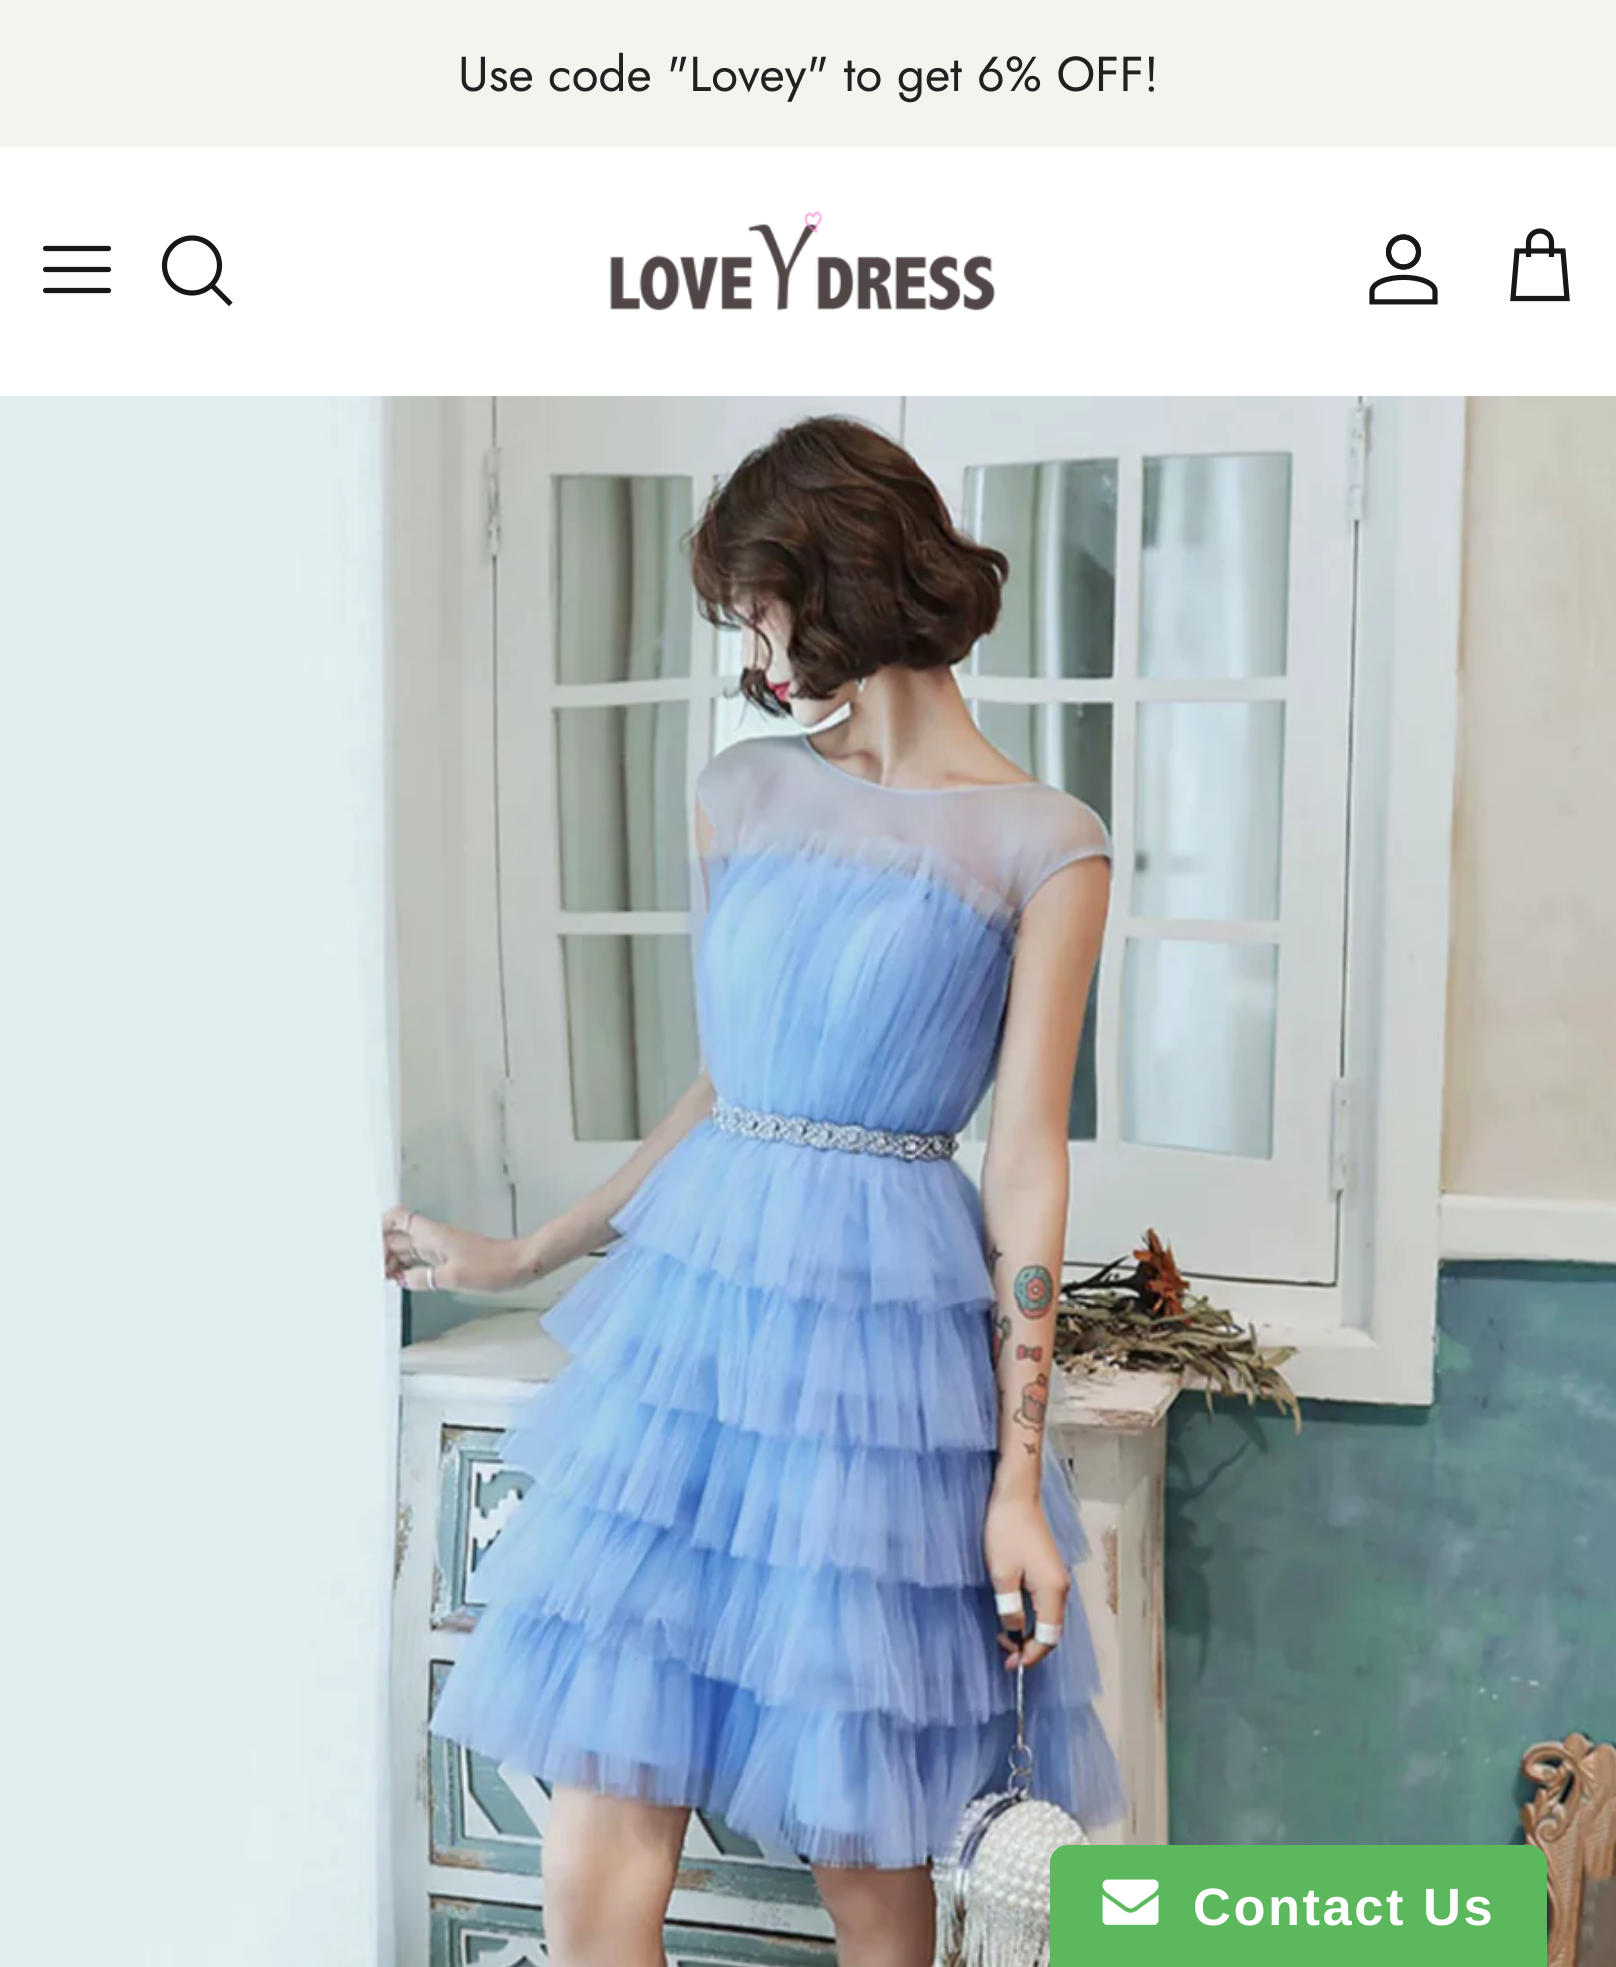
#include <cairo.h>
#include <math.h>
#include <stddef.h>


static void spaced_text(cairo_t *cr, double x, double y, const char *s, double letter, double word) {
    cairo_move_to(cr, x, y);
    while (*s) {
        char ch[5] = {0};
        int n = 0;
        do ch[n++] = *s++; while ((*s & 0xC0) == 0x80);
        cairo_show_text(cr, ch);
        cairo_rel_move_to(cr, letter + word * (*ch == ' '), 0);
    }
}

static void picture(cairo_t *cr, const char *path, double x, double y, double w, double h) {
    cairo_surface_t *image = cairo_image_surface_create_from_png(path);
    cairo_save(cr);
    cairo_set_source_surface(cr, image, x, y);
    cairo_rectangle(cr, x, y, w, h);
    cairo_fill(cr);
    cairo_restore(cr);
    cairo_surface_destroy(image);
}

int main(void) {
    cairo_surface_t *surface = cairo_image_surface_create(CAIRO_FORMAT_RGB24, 1616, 1967);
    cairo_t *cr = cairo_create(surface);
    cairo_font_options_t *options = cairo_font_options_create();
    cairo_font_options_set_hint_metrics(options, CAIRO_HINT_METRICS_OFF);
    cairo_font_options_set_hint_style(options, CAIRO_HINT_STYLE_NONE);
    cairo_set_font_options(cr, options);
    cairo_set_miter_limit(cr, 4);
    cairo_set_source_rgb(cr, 1, 1, 1);
    cairo_paint(cr);
    cairo_set_source_rgb(cr, 0.949, 0.957, 0.933);
    cairo_rectangle(cr, 0, 0, 1616, 147);
    cairo_fill(cr);
    cairo_select_font_face(cr, "Jost", CAIRO_FONT_SLANT_NORMAL, CAIRO_FONT_WEIGHT_NORMAL);
    cairo_set_font_size(cr, 49);
    cairo_set_source_rgb(cr, 0.129, 0.129, 0.129);
    cairo_move_to(cr, 458, 91);
    cairo_show_text(cr, "Use code \"Lovey\" to get 6% OFF!");
    cairo_new_path(cr);
    cairo_move_to(cr, 45.5, 248.5);
    cairo_line_to(cr, 108.5, 248.5);
    cairo_set_source_rgb(cr, 0.09, 0.09, 0.09);
    cairo_set_line_width(cr, 5.2);
    cairo_set_line_cap(cr, CAIRO_LINE_CAP_ROUND);
    cairo_set_line_join(cr, CAIRO_LINE_JOIN_ROUND);
    cairo_stroke(cr);
    cairo_new_path(cr);
    cairo_move_to(cr, 45.5, 269.5);
    cairo_line_to(cr, 108.5, 269.5);
    cairo_stroke(cr);
    cairo_new_path(cr);
    cairo_move_to(cr, 45.5, 290.5);
    cairo_line_to(cr, 108.5, 290.5);
    cairo_stroke(cr);
    cairo_arc(cr, 192, 265.5, 27.5, 0, 2 * M_PI);
    cairo_set_line_cap(cr, CAIRO_LINE_CAP_BUTT);
    cairo_set_line_join(cr, CAIRO_LINE_JOIN_MITER);
    cairo_stroke(cr);
    cairo_new_path(cr);
    cairo_move_to(cr, 213.5, 287);
    cairo_line_to(cr, 229, 302.5);
    cairo_set_line_cap(cr, CAIRO_LINE_CAP_SQUARE);
    cairo_stroke(cr);
    picture(cr, "img1.png", 610, 211, 386, 100);
    picture(cr, "img2.png", 1369, 234, 69, 71);
    cairo_new_path(cr);
    cairo_move_to(cr, 1551.5, 257);
    cairo_line_to(cr, 1551.5, 242.5);
    cairo_curve_to(cr, 1551.5, 236, 1546.5, 231, 1540, 231);
    cairo_curve_to(cr, 1533.5, 231, 1528.5, 236, 1528.5, 242.5);
    cairo_line_to(cr, 1528.5, 257);
    cairo_set_line_cap(cr, CAIRO_LINE_CAP_BUTT);
    cairo_stroke(cr);
    cairo_new_path(cr);
    cairo_move_to(cr, 1517, 251);
    cairo_line_to(cr, 1563, 251);
    cairo_line_to(cr, 1567, 298.5);
    cairo_line_to(cr, 1513, 298.5);
    cairo_close_path(cr);
    cairo_stroke(cr);
    picture(cr, "img3.png", 0, 396, 1616, 1571);
    cairo_set_source_rgb(cr, 0.361, 0.722, 0.361);
    cairo_new_path(cr);
    cairo_move_to(cr, 1068, 1845);
    cairo_line_to(cr, 1529, 1845);
    cairo_curve_to(cr, 1539, 1845, 1547, 1853, 1547, 1863);
    cairo_line_to(cr, 1547, 1967);
    cairo_line_to(cr, 1050, 1967);
    cairo_line_to(cr, 1050, 1863);
    cairo_curve_to(cr, 1050, 1853, 1058, 1845, 1068, 1845);
    cairo_close_path(cr);
    cairo_fill(cr);
    picture(cr, "img4.png", 1102, 1879, 57, 46);
    cairo_select_font_face(cr, "Liberation Sans", CAIRO_FONT_SLANT_NORMAL, CAIRO_FONT_WEIGHT_BOLD);
    cairo_set_font_size(cr, 52.5);
    cairo_set_source_rgb(cr, 1, 1, 1);
    spaced_text(cr, 1193, 1925, "Contact Us", 2.5, 0);
    cairo_surface_write_to_png(surface, "page.png");
    cairo_font_options_destroy(options);
    cairo_destroy(cr);
    cairo_surface_destroy(surface);
    return 0;
}
